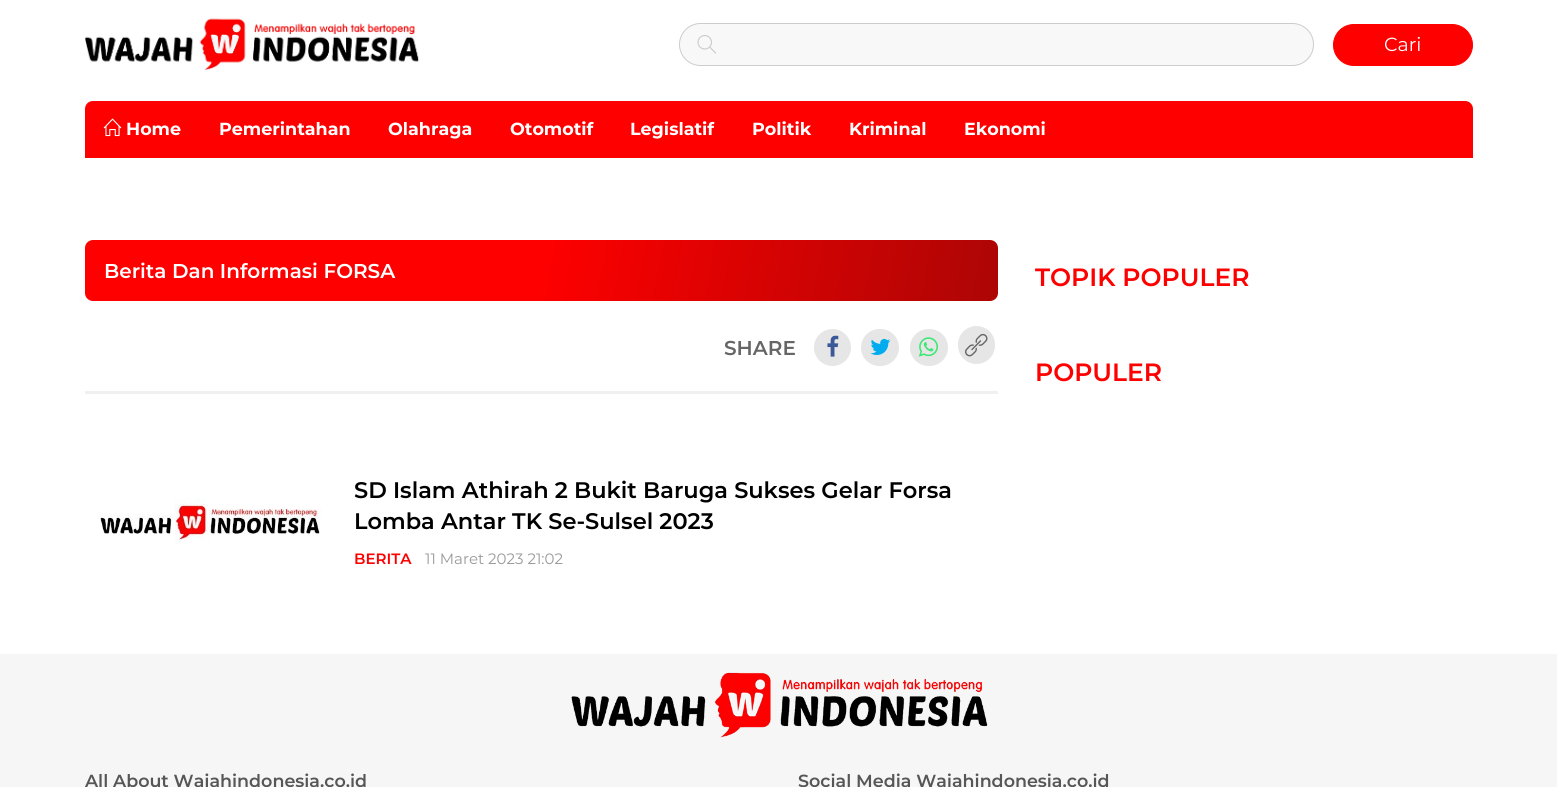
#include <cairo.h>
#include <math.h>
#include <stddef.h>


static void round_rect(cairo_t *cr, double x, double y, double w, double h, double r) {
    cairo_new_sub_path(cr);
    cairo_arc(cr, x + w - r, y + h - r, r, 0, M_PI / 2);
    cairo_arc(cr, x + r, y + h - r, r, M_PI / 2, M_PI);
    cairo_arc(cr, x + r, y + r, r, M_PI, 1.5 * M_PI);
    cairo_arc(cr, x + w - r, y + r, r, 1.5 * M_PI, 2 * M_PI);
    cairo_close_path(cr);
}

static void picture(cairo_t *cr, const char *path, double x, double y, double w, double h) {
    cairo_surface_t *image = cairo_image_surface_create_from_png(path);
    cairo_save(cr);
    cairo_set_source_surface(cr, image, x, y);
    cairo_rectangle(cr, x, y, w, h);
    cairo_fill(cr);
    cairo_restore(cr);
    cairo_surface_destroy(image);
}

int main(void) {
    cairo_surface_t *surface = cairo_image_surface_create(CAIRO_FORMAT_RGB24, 1557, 787);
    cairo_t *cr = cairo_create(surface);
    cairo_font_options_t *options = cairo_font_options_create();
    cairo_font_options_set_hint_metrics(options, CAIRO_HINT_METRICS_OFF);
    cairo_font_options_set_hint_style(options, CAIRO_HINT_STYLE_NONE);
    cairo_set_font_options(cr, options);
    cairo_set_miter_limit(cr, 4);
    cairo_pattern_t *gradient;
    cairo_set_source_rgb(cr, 1, 1, 1);
    cairo_paint(cr);
    picture(cr, "img1.png", 85, 18, 334, 52);
    cairo_set_source_rgb(cr, 0.969, 0.969, 0.969);
    round_rect(cr, 679.5, 23.5, 634, 42, 21);
    cairo_fill_preserve(cr);
    cairo_set_source_rgb(cr, 0.8, 0.8, 0.8);
    cairo_set_line_width(cr, 1);
    cairo_stroke(cr);
    picture(cr, "img2.png", 697, 35, 19, 19);
    cairo_set_source_rgb(cr, 0.996, 0, 0);
    round_rect(cr, 1333.5, 24.5, 139, 41, 20.5);
    cairo_fill_preserve(cr);
    cairo_stroke(cr);
    cairo_select_font_face(cr, "Montserrat", CAIRO_FONT_SLANT_NORMAL, CAIRO_FONT_WEIGHT_NORMAL);
    cairo_set_font_size(cr, 19);
    cairo_set_source_rgb(cr, 1, 1, 1);
    cairo_move_to(cr, 1384, 51);
    cairo_show_text(cr, "Cari");
    cairo_set_source_rgb(cr, 0.996, 0, 0);
    cairo_new_path(cr);
    cairo_move_to(cr, 93, 101);
    cairo_line_to(cr, 1465, 101);
    cairo_curve_to(cr, 1469.5, 101, 1473, 104.5, 1473, 109);
    cairo_line_to(cr, 1473, 158);
    cairo_line_to(cr, 85, 158);
    cairo_line_to(cr, 85, 109);
    cairo_curve_to(cr, 85, 104.5, 88.5, 101, 93, 101);
    cairo_close_path(cr);
    cairo_fill(cr);
    picture(cr, "img3.png", 103, 118, 19, 19);
    cairo_select_font_face(cr, "Montserrat", CAIRO_FONT_SLANT_NORMAL, CAIRO_FONT_WEIGHT_BOLD);
    cairo_set_font_size(cr, 17.5);
    cairo_set_source_rgb(cr, 1, 1, 1);
    cairo_move_to(cr, 126, 135);
    cairo_show_text(cr, "Home");
    cairo_move_to(cr, 219, 135);
    cairo_show_text(cr, "Pemerintahan");
    cairo_move_to(cr, 388, 135);
    cairo_show_text(cr, "Olahraga");
    cairo_move_to(cr, 510, 135);
    cairo_show_text(cr, "Otomotif");
    cairo_move_to(cr, 630, 135);
    cairo_show_text(cr, "Legislatif");
    cairo_move_to(cr, 752, 135);
    cairo_show_text(cr, "Politik");
    cairo_move_to(cr, 849, 135);
    cairo_show_text(cr, "Kriminal");
    cairo_move_to(cr, 964, 135);
    cairo_show_text(cr, "Ekonomi");
    gradient = cairo_pattern_create_linear(94, 192, 989, 350);
    cairo_pattern_add_color_stop_rgba(gradient, 0.5, 0.996, 0, 0, 1);
    cairo_pattern_add_color_stop_rgba(gradient, 1, 0.678, 0.02, 0.02, 1);
    cairo_set_source(cr, gradient);
    cairo_pattern_destroy(gradient);
    round_rect(cr, 85, 240, 913, 61, 8);
    cairo_fill(cr);
    cairo_select_font_face(cr, "Montserrat SemiBold", CAIRO_FONT_SLANT_NORMAL, CAIRO_FONT_WEIGHT_NORMAL);
    cairo_set_font_size(cr, 20);
    cairo_set_source_rgb(cr, 1, 1, 1);
    cairo_move_to(cr, 104, 278);
    cairo_show_text(cr, "Berita Dan Informasi FORSA");
    cairo_set_source_rgb(cr, 0.4, 0.4, 0.4);
    cairo_move_to(cr, 724, 355);
    cairo_show_text(cr, "SHARE");
    cairo_set_source_rgb(cr, 0.902, 0.902, 0.902);
    cairo_new_path(cr);
    cairo_arc(cr, 832.5, 347.5, 18.5, 0, 2 * M_PI);
    cairo_fill(cr);
    picture(cr, "img4.png", 827, 335, 12, 22);
    round_rect(cr, 861, 329, 38, 37, 18.5);
    cairo_fill(cr);
    picture(cr, "img5.png", 870, 338, 21, 17);
    round_rect(cr, 910, 329, 38, 37, 18.5);
    cairo_fill(cr);
    picture(cr, "img6.png", 918, 337, 20, 20);
    round_rect(cr, 958, 326, 37, 38, 18.5);
    cairo_fill(cr);
    picture(cr, "img7.png", 965, 333, 23, 24);
    cairo_set_source_rgb(cr, 0.941, 0.941, 0.941);
    cairo_rectangle(cr, 85, 391, 913, 3);
    cairo_fill(cr);
    picture(cr, "img8.png", 100, 498, 222, 46);
    cairo_set_font_size(cr, 22.5);
    cairo_set_source_rgb(cr, 0, 0, 0);
    cairo_move_to(cr, 354, 498);
    cairo_show_text(cr, "SD Islam Athirah 2 Bukit Baruga Sukses Gelar Forsa");
    cairo_move_to(cr, 354, 529);
    cairo_show_text(cr, "Lomba Antar TK Se-Sulsel 2023");
    cairo_set_font_size(cr, 15);
    cairo_set_source_rgb(cr, 0.996, 0, 0);
    cairo_move_to(cr, 354, 564);
    cairo_show_text(cr, "BERITA");
    cairo_select_font_face(cr, "Montserrat", CAIRO_FONT_SLANT_NORMAL, CAIRO_FONT_WEIGHT_NORMAL);
    cairo_set_source_rgb(cr, 0.6, 0.6, 0.6);
    cairo_move_to(cr, 425, 564);
    cairo_show_text(cr, "11 Maret 2023 21:02");
    cairo_select_font_face(cr, "Montserrat SemiBold", CAIRO_FONT_SLANT_NORMAL, CAIRO_FONT_WEIGHT_NORMAL);
    cairo_set_font_size(cr, 25);
    cairo_set_source_rgb(cr, 0.996, 0, 0);
    cairo_move_to(cr, 1035, 286);
    cairo_show_text(cr, "TOPIK POPULER");
    cairo_move_to(cr, 1035, 381);
    cairo_show_text(cr, "POPULER");
    cairo_set_source_rgb(cr, 0.961, 0.961, 0.961);
    cairo_rectangle(cr, 0, 654, 1557, 133);
    cairo_fill(cr);
    picture(cr, "img9.png", 571, 672, 417, 66);
    cairo_set_font_size(cr, 17.5);
    cairo_set_source_rgb(cr, 0.337, 0.337, 0.337);
    cairo_move_to(cr, 85, 787);
    cairo_show_text(cr, "All About Wajahindonesia.co.id");
    cairo_move_to(cr, 798, 787);
    cairo_show_text(cr, "Social Media Wajahindonesia.co.id");
    cairo_surface_write_to_png(surface, "page.png");
    cairo_font_options_destroy(options);
    cairo_destroy(cr);
    cairo_surface_destroy(surface);
    return 0;
}
